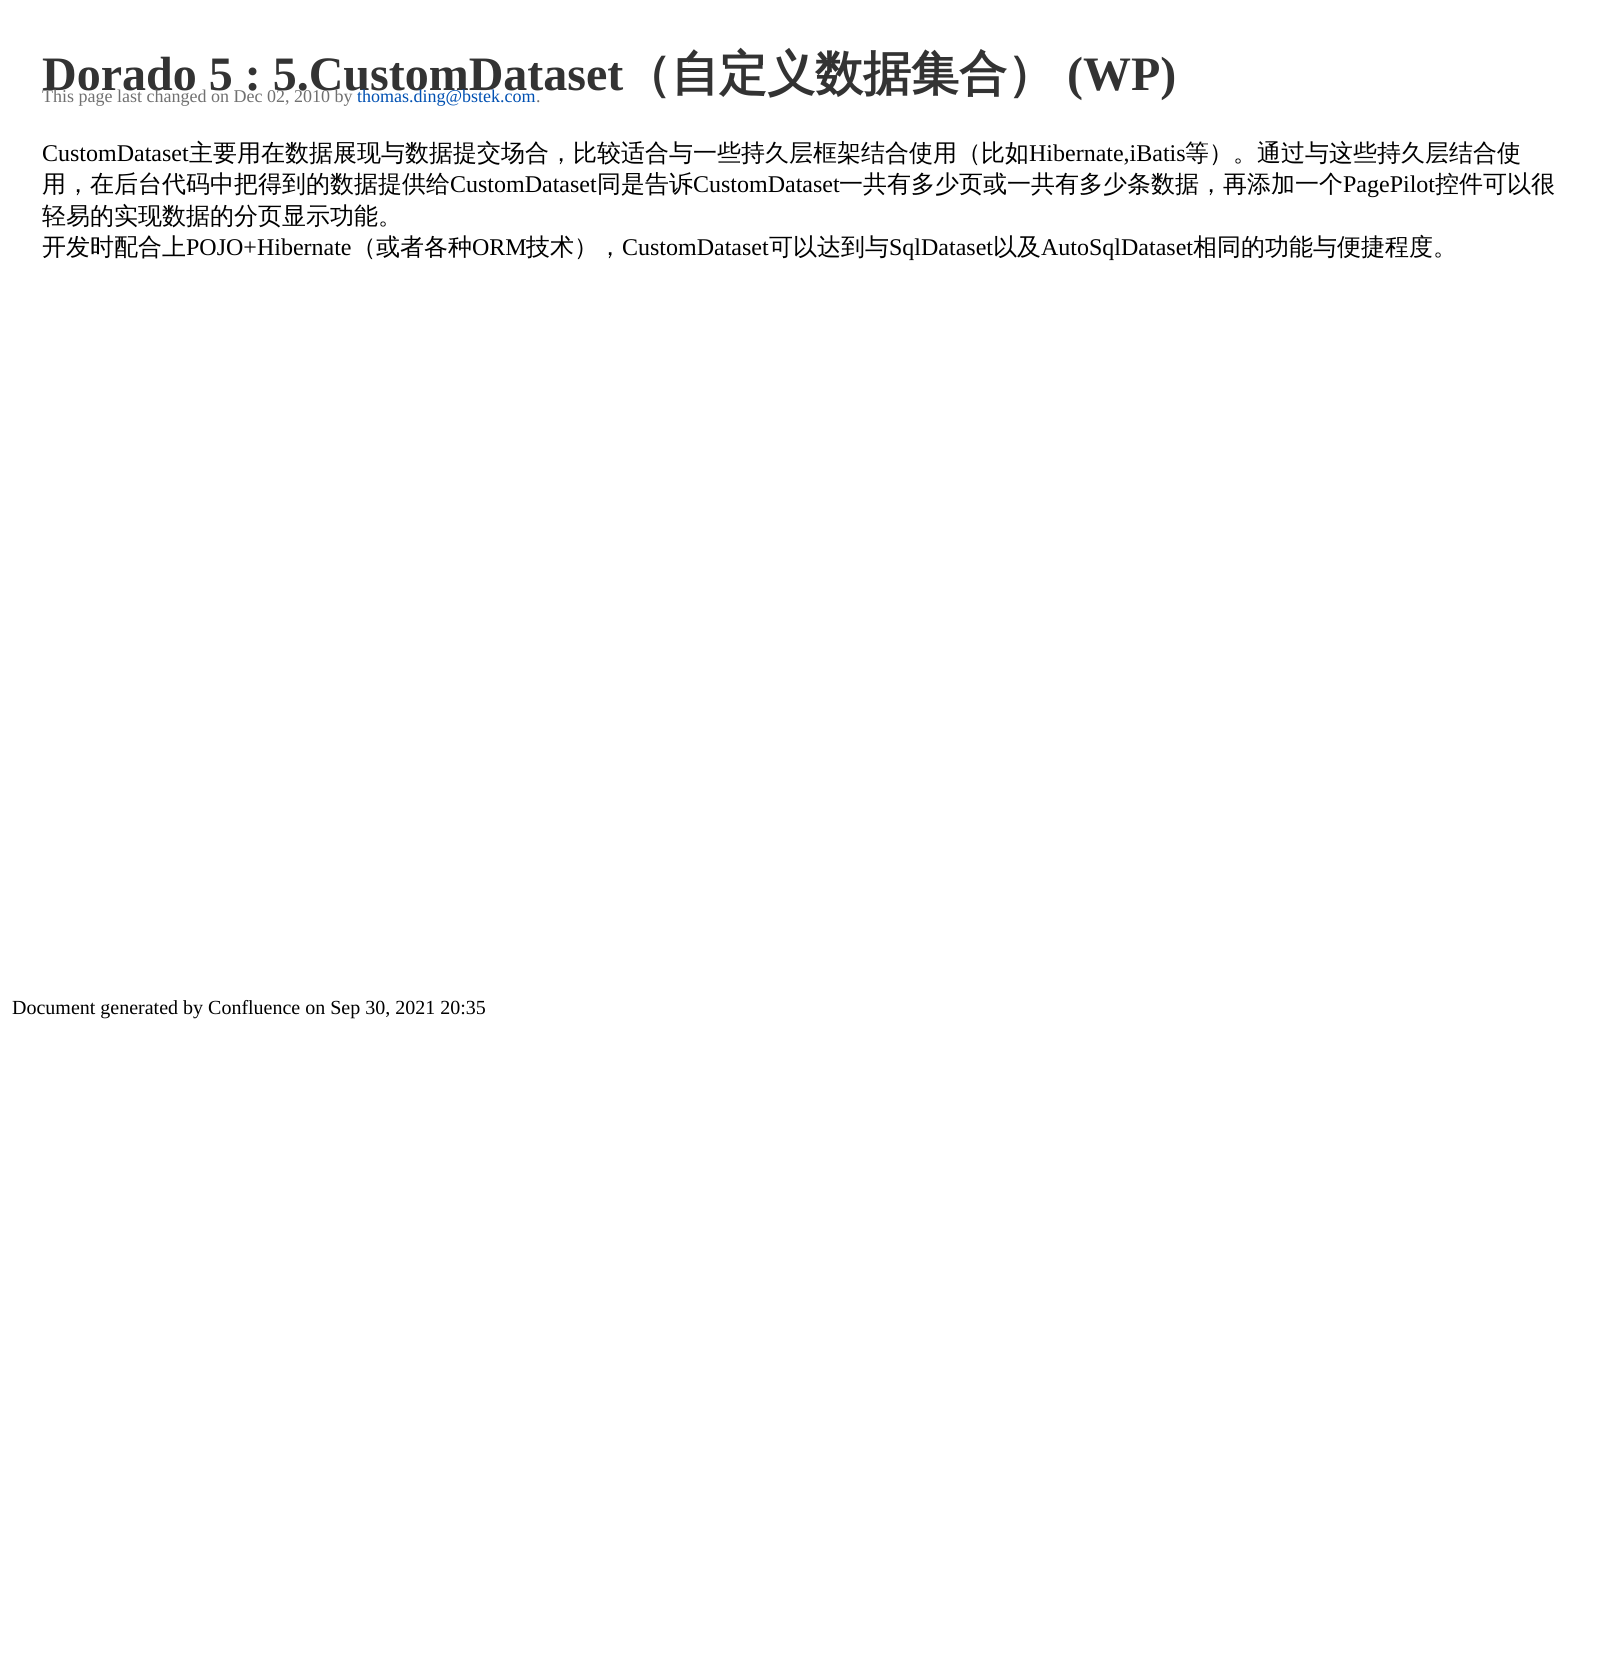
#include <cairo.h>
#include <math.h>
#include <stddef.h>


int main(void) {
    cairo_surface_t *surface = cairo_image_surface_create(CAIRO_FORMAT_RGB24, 1602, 1678);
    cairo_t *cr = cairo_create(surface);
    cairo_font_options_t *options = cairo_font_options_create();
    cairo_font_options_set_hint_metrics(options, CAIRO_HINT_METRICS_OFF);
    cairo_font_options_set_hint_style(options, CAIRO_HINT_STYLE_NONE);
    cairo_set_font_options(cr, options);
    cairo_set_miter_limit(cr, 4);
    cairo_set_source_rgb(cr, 1, 1, 1);
    cairo_paint(cr);
    cairo_select_font_face(cr, "Liberation Serif", CAIRO_FONT_SLANT_NORMAL, CAIRO_FONT_WEIGHT_BOLD);
    cairo_set_font_size(cr, 48);
    cairo_set_source_rgb(cr, 0.2, 0.2, 0.2);
    cairo_move_to(cr, 42, 90);
    cairo_show_text(cr, "Dorado 5 : 5.CustomDataset");
    cairo_select_font_face(cr, "WenQuanYi Zen Hei", CAIRO_FONT_SLANT_NORMAL, CAIRO_FONT_WEIGHT_BOLD);
    cairo_move_to(cr, 623, 90);
    cairo_show_text(cr, "（自定义数据集合）");
    cairo_select_font_face(cr, "Liberation Serif", CAIRO_FONT_SLANT_NORMAL, CAIRO_FONT_WEIGHT_BOLD);
    cairo_move_to(cr, 1067, 90);
    cairo_show_text(cr, "(WP)");
    cairo_select_font_face(cr, "Liberation Serif", CAIRO_FONT_SLANT_NORMAL, CAIRO_FONT_WEIGHT_NORMAL);
    cairo_set_font_size(cr, 18);
    cairo_set_source_rgb(cr, 0.439, 0.439, 0.439);
    cairo_move_to(cr, 42, 102);
    cairo_show_text(cr, "This page last changed on Dec 02, 2010 by");
    cairo_set_source_rgb(cr, 0, 0.314, 0.698);
    cairo_move_to(cr, 357, 102);
    cairo_show_text(cr, "thomas.ding@bstek.com");
    cairo_set_source_rgb(cr, 0.439, 0.439, 0.439);
    cairo_move_to(cr, 536, 102);
    cairo_show_text(cr, ".");
    cairo_set_font_size(cr, 24);
    cairo_set_source_rgb(cr, 0, 0, 0);
    cairo_move_to(cr, 42, 161);
    cairo_show_text(cr, "CustomDataset");
    cairo_select_font_face(cr, "WenQuanYi Zen Hei Medium", CAIRO_FONT_SLANT_NORMAL, CAIRO_FONT_WEIGHT_NORMAL);
    cairo_move_to(cr, 189, 161);
    cairo_show_text(cr, "主要用在数据展现与数据提交场合，比较适合与一些持久层框架结合使用（比如");
    cairo_select_font_face(cr, "Liberation Serif", CAIRO_FONT_SLANT_NORMAL, CAIRO_FONT_WEIGHT_NORMAL);
    cairo_move_to(cr, 1029, 161);
    cairo_show_text(cr, "Hibernate,iBatis");
    cairo_select_font_face(cr, "WenQuanYi Zen Hei Medium", CAIRO_FONT_SLANT_NORMAL, CAIRO_FONT_WEIGHT_NORMAL);
    cairo_move_to(cr, 1185, 161);
    cairo_show_text(cr, "等）。通过与这些持久层结合使");
    cairo_move_to(cr, 42, 192);
    cairo_show_text(cr, "用，在后台代码中把得到的数据提供给");
    cairo_select_font_face(cr, "Liberation Serif", CAIRO_FONT_SLANT_NORMAL, CAIRO_FONT_WEIGHT_NORMAL);
    cairo_move_to(cr, 450, 192);
    cairo_show_text(cr, "CustomDataset");
    cairo_select_font_face(cr, "WenQuanYi Zen Hei Medium", CAIRO_FONT_SLANT_NORMAL, CAIRO_FONT_WEIGHT_NORMAL);
    cairo_move_to(cr, 597, 192);
    cairo_show_text(cr, "同是告诉");
    cairo_select_font_face(cr, "Liberation Serif", CAIRO_FONT_SLANT_NORMAL, CAIRO_FONT_WEIGHT_NORMAL);
    cairo_move_to(cr, 693, 192);
    cairo_show_text(cr, "CustomDataset");
    cairo_select_font_face(cr, "WenQuanYi Zen Hei Medium", CAIRO_FONT_SLANT_NORMAL, CAIRO_FONT_WEIGHT_NORMAL);
    cairo_move_to(cr, 839, 192);
    cairo_show_text(cr, "一共有多少页或一共有多少条数据，再添加一个");
    cairo_select_font_face(cr, "Liberation Serif", CAIRO_FONT_SLANT_NORMAL, CAIRO_FONT_WEIGHT_NORMAL);
    cairo_move_to(cr, 1343, 192);
    cairo_show_text(cr, "PagePilot");
    cairo_select_font_face(cr, "WenQuanYi Zen Hei Medium", CAIRO_FONT_SLANT_NORMAL, CAIRO_FONT_WEIGHT_NORMAL);
    cairo_move_to(cr, 1435, 192);
    cairo_show_text(cr, "控件可以很");
    cairo_move_to(cr, 42, 224);
    cairo_show_text(cr, "轻易的实现数据的分页显示功能。");
    cairo_move_to(cr, 42, 255);
    cairo_show_text(cr, "开发时配合上");
    cairo_select_font_face(cr, "Liberation Serif", CAIRO_FONT_SLANT_NORMAL, CAIRO_FONT_WEIGHT_NORMAL);
    cairo_move_to(cr, 186, 255);
    cairo_show_text(cr, "POJO+Hibernate");
    cairo_select_font_face(cr, "WenQuanYi Zen Hei Medium", CAIRO_FONT_SLANT_NORMAL, CAIRO_FONT_WEIGHT_NORMAL);
    cairo_move_to(cr, 352, 255);
    cairo_show_text(cr, "（或者各种");
    cairo_select_font_face(cr, "Liberation Serif", CAIRO_FONT_SLANT_NORMAL, CAIRO_FONT_WEIGHT_NORMAL);
    cairo_move_to(cr, 472, 255);
    cairo_show_text(cr, "ORM");
    cairo_select_font_face(cr, "WenQuanYi Zen Hei Medium", CAIRO_FONT_SLANT_NORMAL, CAIRO_FONT_WEIGHT_NORMAL);
    cairo_move_to(cr, 526, 255);
    cairo_show_text(cr, "技术），");
    cairo_select_font_face(cr, "Liberation Serif", CAIRO_FONT_SLANT_NORMAL, CAIRO_FONT_WEIGHT_NORMAL);
    cairo_move_to(cr, 622, 255);
    cairo_show_text(cr, "CustomDataset");
    cairo_select_font_face(cr, "WenQuanYi Zen Hei Medium", CAIRO_FONT_SLANT_NORMAL, CAIRO_FONT_WEIGHT_NORMAL);
    cairo_move_to(cr, 769, 255);
    cairo_show_text(cr, "可以达到与");
    cairo_select_font_face(cr, "Liberation Serif", CAIRO_FONT_SLANT_NORMAL, CAIRO_FONT_WEIGHT_NORMAL);
    cairo_move_to(cr, 889, 255);
    cairo_show_text(cr, "SqlDataset");
    cairo_select_font_face(cr, "WenQuanYi Zen Hei Medium", CAIRO_FONT_SLANT_NORMAL, CAIRO_FONT_WEIGHT_NORMAL);
    cairo_move_to(cr, 993, 255);
    cairo_show_text(cr, "以及");
    cairo_select_font_face(cr, "Liberation Serif", CAIRO_FONT_SLANT_NORMAL, CAIRO_FONT_WEIGHT_NORMAL);
    cairo_move_to(cr, 1041, 255);
    cairo_show_text(cr, "AutoSqlDataset");
    cairo_select_font_face(cr, "WenQuanYi Zen Hei Medium", CAIRO_FONT_SLANT_NORMAL, CAIRO_FONT_WEIGHT_NORMAL);
    cairo_move_to(cr, 1193, 255);
    cairo_show_text(cr, "相同的功能与便捷程度。");
    cairo_select_font_face(cr, "Liberation Serif", CAIRO_FONT_SLANT_NORMAL, CAIRO_FONT_WEIGHT_NORMAL);
    cairo_set_font_size(cr, 20);
    cairo_move_to(cr, 12, 1014);
    cairo_show_text(cr, "Document generated by Confluence on Sep 30, 2021 20:35");
    cairo_surface_write_to_png(surface, "page.png");
    cairo_font_options_destroy(options);
    cairo_destroy(cr);
    cairo_surface_destroy(surface);
    return 0;
}
